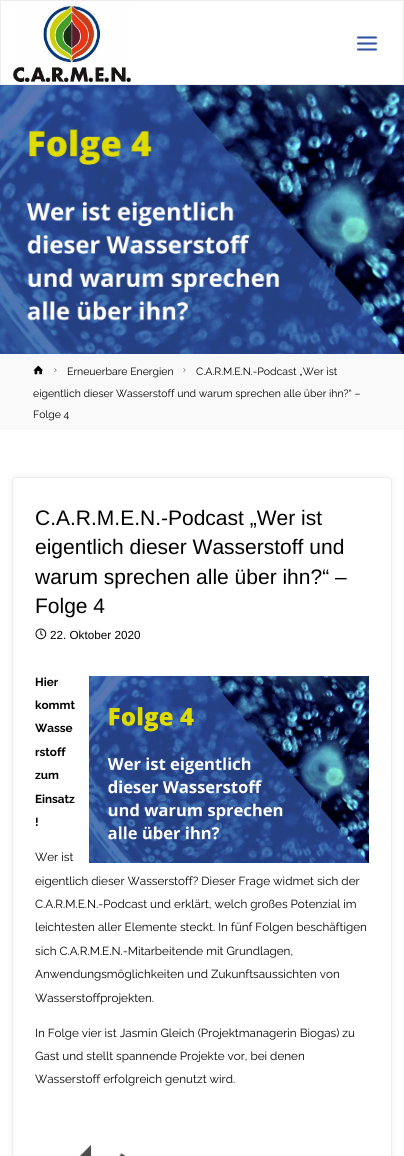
#include <cairo.h>
#include <math.h>
#include <stddef.h>


static void round_rect(cairo_t *cr, double x, double y, double w, double h, double r) {
    cairo_new_sub_path(cr);
    cairo_arc(cr, x + w - r, y + h - r, r, 0, M_PI / 2);
    cairo_arc(cr, x + r, y + h - r, r, M_PI / 2, M_PI);
    cairo_arc(cr, x + r, y + r, r, M_PI, 1.5 * M_PI);
    cairo_arc(cr, x + w - r, y + r, r, 1.5 * M_PI, 2 * M_PI);
    cairo_close_path(cr);
}

static void shadow(cairo_t *cr, double x, double y, double w, double h, double r, double blur, double alpha) {
    cairo_push_group_with_content(cr, CAIRO_CONTENT_ALPHA);
    cairo_set_operator(cr, CAIRO_OPERATOR_SOURCE);
    for (int i = 15; i >= -15 && fmin(w, h) + blur * i / 3 > 0; i -= 2) {
        double e = blur * i / 6;
        cairo_set_source_rgba(cr, 0, 0, 0, alpha * erfc((i - 1) / 8.5) / 2);
        round_rect(cr, x - e, y - e, w + 2 * e, h + 2 * e, fmax(0, fmin(r + e + blur * .6, fmin(w, h) / 2 + e)));
        cairo_fill(cr);
    }
    cairo_pattern_t *soft = cairo_pop_group(cr);
    cairo_mask(cr, soft);
    cairo_pattern_destroy(soft);
}

static void picture(cairo_t *cr, const char *path, double x, double y, double w, double h) {
    cairo_surface_t *image = cairo_image_surface_create_from_png(path);
    cairo_save(cr);
    cairo_set_source_surface(cr, image, x, y);
    cairo_rectangle(cr, x, y, w, h);
    cairo_fill(cr);
    cairo_restore(cr);
    cairo_surface_destroy(image);
}

int main(void) {
    cairo_surface_t *surface = cairo_image_surface_create(CAIRO_FORMAT_RGB24, 404, 1156);
    cairo_t *cr = cairo_create(surface);
    cairo_font_options_t *options = cairo_font_options_create();
    cairo_font_options_set_hint_metrics(options, CAIRO_HINT_METRICS_OFF);
    cairo_font_options_set_hint_style(options, CAIRO_HINT_STYLE_NONE);
    cairo_set_font_options(cr, options);
    cairo_set_miter_limit(cr, 4);
    cairo_set_source_rgb(cr, 1, 1, 1);
    cairo_paint(cr);
    cairo_rectangle(cr, 0.5, 0.5, 403, 84);
    cairo_set_source_rgb(cr, 0.929, 0.929, 0.929);
    cairo_set_line_width(cr, 1);
    cairo_stroke(cr);
    picture(cr, "img1.png", 13, 6, 118, 76);
    picture(cr, "img2.png", 357, 36, 20, 15);
    picture(cr, "img3.png", 0, 85, 404, 269);
    cairo_set_source_rgb(cr, 0.976, 0.976, 0.976);
    cairo_rectangle(cr, 0, 354, 404, 76);
    cairo_fill(cr);
    picture(cr, "img4.png", 33, 365, 10, 10);
    picture(cr, "img5.png", 54, 368, 3, 5);
    cairo_select_font_face(cr, "Raleway", CAIRO_FONT_SLANT_NORMAL, CAIRO_FONT_WEIGHT_NORMAL);
    cairo_set_font_size(cr, 10.5);
    cairo_set_source_rgb(cr, 0, 0, 0);
    cairo_move_to(cr, 67, 375);
    cairo_show_text(cr, "Erneuerbare Energien");
    picture(cr, "img5.png", 183, 368, 3, 5);
    cairo_move_to(cr, 196, 375);
    cairo_show_text(cr, "C.A.R.M.E.N.-Podcast „Wer ist");
    cairo_move_to(cr, 33, 397);
    cairo_show_text(cr, "eigentlich dieser Wasserstoff und warum sprechen alle über ihn?“ –");
    cairo_move_to(cr, 33, 418);
    cairo_show_text(cr, "Folge 4");
    cairo_set_source_rgb(cr, 0, 0, 0);
    shadow(cr, 11, 476, 382, 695, 6, 3, 0.05);
    cairo_set_source_rgb(cr, 1, 1, 1);
    round_rect(cr, 12.5, 477.5, 379, 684, 4.5);
    cairo_fill_preserve(cr);
    cairo_set_source_rgb(cr, 0.929, 0.929, 0.929);
    cairo_stroke(cr);
    cairo_select_font_face(cr, "Liberation Sans", CAIRO_FONT_SLANT_NORMAL, CAIRO_FONT_WEIGHT_NORMAL);
    cairo_set_font_size(cr, 21);
    cairo_set_source_rgb(cr, 0, 0, 0);
    cairo_move_to(cr, 35, 525);
    cairo_show_text(cr, "C.A.R.M.E.N.-Podcast „Wer ist");
    cairo_move_to(cr, 35, 554);
    cairo_show_text(cr, "eigentlich dieser Wasserstoff und");
    cairo_move_to(cr, 35, 584);
    cairo_show_text(cr, "warum sprechen alle über ihn?“ –");
    cairo_move_to(cr, 35, 613);
    cairo_show_text(cr, "Folge 4");
    picture(cr, "img6.png", 35, 628, 12, 12);
    cairo_set_font_size(cr, 11.7);
    cairo_move_to(cr, 50, 639);
    cairo_show_text(cr, "22. Oktober 2020");
    cairo_select_font_face(cr, "Raleway", CAIRO_FONT_SLANT_NORMAL, CAIRO_FONT_WEIGHT_BOLD);
    cairo_move_to(cr, 35, 686);
    cairo_show_text(cr, "Hier");
    cairo_move_to(cr, 35, 709);
    cairo_show_text(cr, "kommt");
    cairo_move_to(cr, 35, 732);
    cairo_show_text(cr, "Wasse");
    cairo_move_to(cr, 35, 756);
    cairo_show_text(cr, "rstoff");
    cairo_move_to(cr, 35, 779);
    cairo_show_text(cr, "zum");
    cairo_move_to(cr, 35, 803);
    cairo_show_text(cr, "Einsatz");
    cairo_move_to(cr, 35, 826);
    cairo_show_text(cr, "!");
    picture(cr, "img7.png", 89, 676, 280, 187);
    cairo_select_font_face(cr, "Raleway", CAIRO_FONT_SLANT_NORMAL, CAIRO_FONT_WEIGHT_NORMAL);
    cairo_move_to(cr, 35, 861);
    cairo_show_text(cr, "Wer ist");
    cairo_move_to(cr, 35, 885);
    cairo_show_text(cr, "eigentlich dieser Wasserstoff? Dieser Frage widmet sich der");
    cairo_move_to(cr, 35, 908);
    cairo_show_text(cr, "C.A.R.M.E.N.-Podcast und erklärt, welch großes Potenzial im");
    cairo_move_to(cr, 35, 931);
    cairo_show_text(cr, "leichtesten aller Elemente steckt. In fünf Folgen beschäftigen");
    cairo_move_to(cr, 35, 955);
    cairo_show_text(cr, "sich C.A.R.M.E.N.-Mitarbeitende mit Grundlagen,");
    cairo_move_to(cr, 35, 978);
    cairo_show_text(cr, "Anwendungsmöglichkeiten und Zukunftsaussichten von");
    cairo_move_to(cr, 35, 1002);
    cairo_show_text(cr, "Wasserstoffprojekten.");
    cairo_move_to(cr, 35, 1037);
    cairo_show_text(cr, "In Folge vier ist Jasmin Gleich (Projektmanagerin Biogas) zu");
    cairo_move_to(cr, 35, 1060);
    cairo_show_text(cr, "Gast und stellt spannende Projekte vor, bei denen");
    cairo_move_to(cr, 35, 1083);
    cairo_show_text(cr, "Wasserstoff erfolgreich genutzt wird.");
    picture(cr, "img8.png", 79, 1145, 48, 11);
    cairo_surface_write_to_png(surface, "page.png");
    cairo_font_options_destroy(options);
    cairo_destroy(cr);
    cairo_surface_destroy(surface);
    return 0;
}
